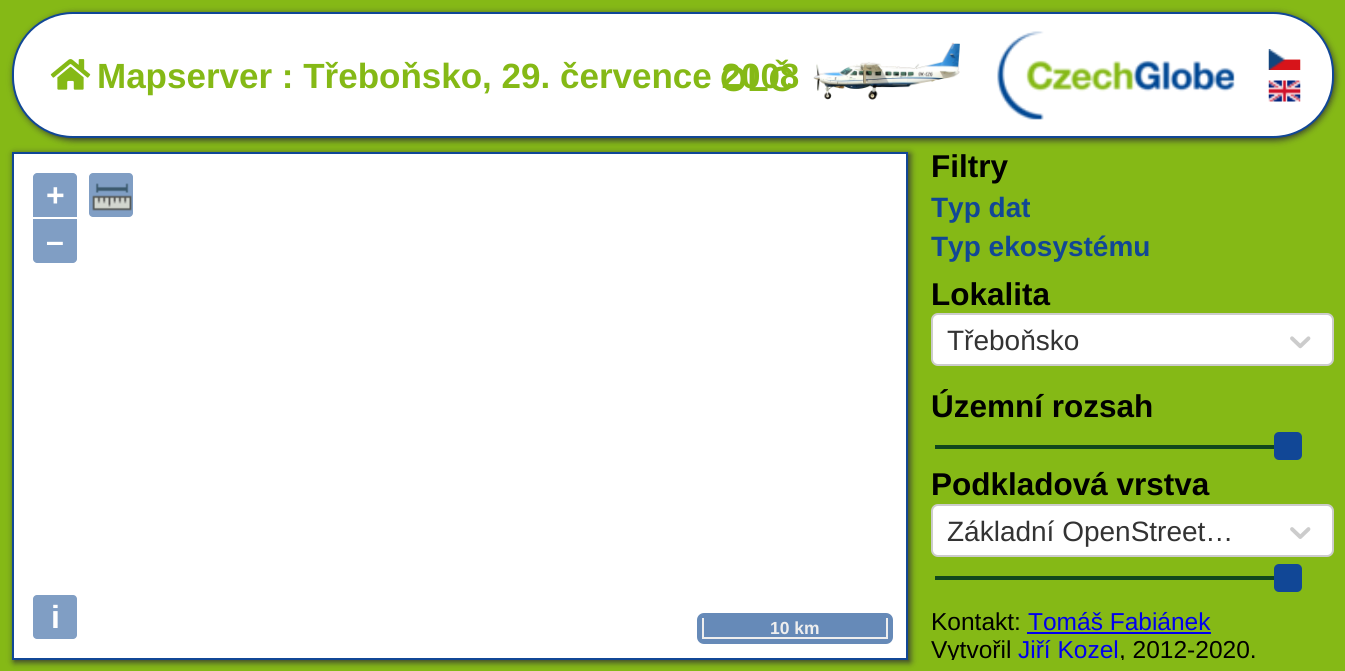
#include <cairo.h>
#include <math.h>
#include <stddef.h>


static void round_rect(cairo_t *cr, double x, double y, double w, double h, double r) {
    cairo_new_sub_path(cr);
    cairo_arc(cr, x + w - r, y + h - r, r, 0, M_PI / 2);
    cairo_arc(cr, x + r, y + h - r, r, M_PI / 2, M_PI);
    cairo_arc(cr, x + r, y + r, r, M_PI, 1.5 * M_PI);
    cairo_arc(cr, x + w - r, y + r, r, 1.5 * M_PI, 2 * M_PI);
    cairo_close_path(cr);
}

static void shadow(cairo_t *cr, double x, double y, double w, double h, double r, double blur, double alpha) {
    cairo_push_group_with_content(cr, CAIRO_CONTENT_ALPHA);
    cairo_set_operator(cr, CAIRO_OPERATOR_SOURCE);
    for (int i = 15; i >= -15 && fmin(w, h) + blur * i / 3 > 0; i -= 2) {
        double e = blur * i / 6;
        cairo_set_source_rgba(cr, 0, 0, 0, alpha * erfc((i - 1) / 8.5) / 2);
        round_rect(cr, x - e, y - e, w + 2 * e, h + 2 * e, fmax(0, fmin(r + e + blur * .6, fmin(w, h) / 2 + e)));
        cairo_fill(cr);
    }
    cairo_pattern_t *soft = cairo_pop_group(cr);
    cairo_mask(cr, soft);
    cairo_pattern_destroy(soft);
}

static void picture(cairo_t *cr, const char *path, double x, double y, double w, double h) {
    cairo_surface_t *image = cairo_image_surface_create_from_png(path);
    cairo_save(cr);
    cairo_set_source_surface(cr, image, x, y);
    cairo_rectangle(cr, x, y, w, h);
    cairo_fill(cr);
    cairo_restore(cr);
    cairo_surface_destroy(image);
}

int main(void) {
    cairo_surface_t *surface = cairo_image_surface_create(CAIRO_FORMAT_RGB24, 1345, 671);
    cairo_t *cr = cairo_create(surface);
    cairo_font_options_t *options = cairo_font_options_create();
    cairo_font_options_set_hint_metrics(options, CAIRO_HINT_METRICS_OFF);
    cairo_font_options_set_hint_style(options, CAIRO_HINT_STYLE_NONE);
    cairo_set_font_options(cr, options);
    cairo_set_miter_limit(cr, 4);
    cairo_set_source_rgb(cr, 0.522, 0.725, 0.086);
    cairo_paint(cr);
    cairo_set_source_rgb(cr, 0.2, 0.2, 0.2);
    shadow(cr, 14, 14, 1321, 126, 61, 3.5, 1);
    cairo_set_source_rgb(cr, 1, 1, 1);
    round_rect(cr, 13, 13, 1320, 124, 60);
    cairo_fill_preserve(cr);
    cairo_set_source_rgb(cr, 0.067, 0.278, 0.588);
    cairo_stroke(cr);
    cairo_select_font_face(cr, "Liberation Sans", CAIRO_FONT_SLANT_NORMAL, CAIRO_FONT_WEIGHT_BOLD);
    cairo_set_font_size(cr, 35);
    cairo_set_source_rgb(cr, 0.522, 0.725, 0.086);
    cairo_move_to(cr, 97, 88);
    cairo_show_text(cr, "Mapserver : Třeboňsko, 29. července 2008");
    cairo_move_to(cr, 720, 91);
    cairo_show_text(cr, "OLČ");
    picture(cr, "img1.png", 813, 42, 147, 58);
    picture(cr, "img2.png", 997, 31, 238, 89);
    picture(cr, "img3.png", 1268, 49, 33, 21);
    picture(cr, "img4.png", 1268, 80, 33, 22);
    picture(cr, "img5.png", 50, 59, 41, 31);
    cairo_set_source_rgb(cr, 0.2, 0.2, 0.2);
    shadow(cr, 14, 154, 896, 508, 0, 3.5, 1);
    cairo_set_source_rgb(cr, 1, 1, 1);
    cairo_rectangle(cr, 13, 153, 894, 506);
    cairo_fill_preserve(cr);
    cairo_set_source_rgb(cr, 0.067, 0.278, 0.588);
    cairo_stroke(cr);
    cairo_set_source_rgb(cr, 0.502, 0.62, 0.769);
    cairo_new_path(cr);
    cairo_move_to(cr, 37, 173);
    cairo_line_to(cr, 73, 173);
    cairo_curve_to(cr, 75, 173, 77, 175, 77, 177);
    cairo_line_to(cr, 77, 217);
    cairo_line_to(cr, 33, 217);
    cairo_line_to(cr, 33, 177);
    cairo_curve_to(cr, 33, 175, 35, 173, 37, 173);
    cairo_close_path(cr);
    cairo_fill(cr);
    cairo_set_font_size(cr, 32);
    cairo_set_source_rgb(cr, 1, 1, 1);
    cairo_move_to(cr, 46, 206);
    cairo_show_text(cr, "+");
    cairo_set_source_rgb(cr, 0.502, 0.62, 0.769);
    cairo_new_path(cr);
    cairo_move_to(cr, 33, 219);
    cairo_line_to(cr, 77, 219);
    cairo_line_to(cr, 77, 259);
    cairo_curve_to(cr, 77, 261, 75, 263, 73, 263);
    cairo_line_to(cr, 37, 263);
    cairo_curve_to(cr, 35, 263, 33, 261, 33, 259);
    cairo_close_path(cr);
    cairo_fill(cr);
    cairo_set_source_rgb(cr, 1, 1, 1);
    cairo_move_to(cr, 46, 252);
    cairo_show_text(cr, "–");
    cairo_set_source_rgb(cr, 0.502, 0.62, 0.769);
    round_rect(cr, 89, 173, 44, 44, 4);
    cairo_fill(cr);
    picture(cr, "img6.png", 92, 183, 40, 28);
    round_rect(cr, 33, 595, 44, 44, 4);
    cairo_fill(cr);
    cairo_set_source_rgb(cr, 1, 1, 1);
    cairo_move_to(cr, 51, 628);
    cairo_show_text(cr, "i");
    cairo_set_source_rgb(cr, 0.4, 0.541, 0.722);
    round_rect(cr, 697, 613, 196, 31, 7);
    cairo_fill(cr);
    cairo_set_source_rgb(cr, 0.933, 0.933, 0.933);
    cairo_rectangle(cr, 886, 618, 2, 21);
    cairo_fill(cr);
    cairo_rectangle(cr, 702, 637, 185, 2);
    cairo_fill(cr);
    cairo_rectangle(cr, 702, 618, 2, 21);
    cairo_fill(cr);
    cairo_set_font_size(cr, 17.5);
    cairo_move_to(cr, 770, 634);
    cairo_show_text(cr, "10 km");
    cairo_set_font_size(cr, 31.5);
    cairo_set_source_rgb(cr, 0, 0, 0);
    cairo_move_to(cr, 931, 177);
    cairo_show_text(cr, "Filtry");
    cairo_set_font_size(cr, 28);
    cairo_set_source_rgb(cr, 0.067, 0.278, 0.588);
    cairo_move_to(cr, 931, 217);
    cairo_show_text(cr, "Typ dat");
    cairo_move_to(cr, 931, 256);
    cairo_show_text(cr, "Typ ekosystému");
    cairo_set_font_size(cr, 31.5);
    cairo_set_source_rgb(cr, 0, 0, 0);
    cairo_move_to(cr, 931, 305);
    cairo_show_text(cr, "Lokalita");
    cairo_set_source_rgb(cr, 1, 1, 1);
    round_rect(cr, 932, 314, 401, 51, 6);
    cairo_fill_preserve(cr);
    cairo_set_source_rgb(cr, 0.8, 0.8, 0.8);
    cairo_stroke(cr);
    cairo_select_font_face(cr, "Liberation Sans", CAIRO_FONT_SLANT_NORMAL, CAIRO_FONT_WEIGHT_NORMAL);
    cairo_set_font_size(cr, 28);
    cairo_set_source_rgb(cr, 0.2, 0.2, 0.2);
    cairo_move_to(cr, 947, 350);
    cairo_show_text(cr, "Třeboňsko");
    picture(cr, "img7.png", 1290, 336, 21, 13);
    cairo_select_font_face(cr, "Liberation Sans", CAIRO_FONT_SLANT_NORMAL, CAIRO_FONT_WEIGHT_BOLD);
    cairo_set_font_size(cr, 31.5);
    cairo_set_source_rgb(cr, 0, 0, 0);
    cairo_move_to(cr, 931, 417);
    cairo_show_text(cr, "Územní rozsah");
    cairo_set_source_rgb(cr, 0.067, 0.278, 0.114);
    cairo_rectangle(cr, 935, 445, 339, 4);
    cairo_fill(cr);
    cairo_set_source_rgb(cr, 0.067, 0.278, 0.588);
    round_rect(cr, 1274, 432, 28, 28, 5);
    cairo_fill(cr);
    cairo_set_source_rgb(cr, 0, 0, 0);
    cairo_move_to(cr, 931, 495);
    cairo_show_text(cr, "Podkladová vrstva");
    cairo_set_source_rgb(cr, 1, 1, 1);
    round_rect(cr, 932, 505, 401, 51, 6);
    cairo_fill_preserve(cr);
    cairo_set_source_rgb(cr, 0.8, 0.8, 0.8);
    cairo_stroke(cr);
    cairo_select_font_face(cr, "Liberation Sans", CAIRO_FONT_SLANT_NORMAL, CAIRO_FONT_WEIGHT_NORMAL);
    cairo_set_font_size(cr, 28);
    cairo_set_source_rgb(cr, 0.2, 0.2, 0.2);
    cairo_move_to(cr, 947, 541);
    cairo_show_text(cr, "Základní OpenStreet…");
    picture(cr, "img8.png", 1290, 527, 21, 12);
    cairo_set_source_rgb(cr, 0.067, 0.278, 0.114);
    cairo_rectangle(cr, 935, 576, 339, 4);
    cairo_fill(cr);
    cairo_set_source_rgb(cr, 0.067, 0.278, 0.588);
    round_rect(cr, 1274, 564, 28, 28, 5);
    cairo_fill(cr);
    cairo_set_font_size(cr, 24.5);
    cairo_set_source_rgb(cr, 0, 0, 0);
    cairo_move_to(cr, 931, 630);
    cairo_show_text(cr, "Kontakt:");
    cairo_set_source_rgb(cr, 0, 0, 0.933);
    cairo_move_to(cr, 1028, 630);
    cairo_show_text(cr, "Tomáš Fabiánek");
    cairo_rectangle(cr, 1027, 632, 184, 2);
    cairo_fill(cr);
    cairo_save(cr);
    cairo_rectangle(cr, 931, 607, 403, 53);
    cairo_clip(cr);
    cairo_set_source_rgb(cr, 0, 0, 0);
    cairo_move_to(cr, 931, 658);
    cairo_show_text(cr, "Vytvořil");
    cairo_restore(cr);
    cairo_move_to(cr, 1018, 658);
    cairo_show_text(cr, "Jiří Kozel");
    cairo_save(cr);
    cairo_rectangle(cr, 931, 607, 403, 53);
    cairo_clip(cr);
    cairo_set_source_rgb(cr, 0, 0, 0);
    cairo_move_to(cr, 1119, 658);
    cairo_show_text(cr, ", 2012-2020.");
    cairo_restore(cr);
    cairo_surface_write_to_png(surface, "page.png");
    cairo_font_options_destroy(options);
    cairo_destroy(cr);
    cairo_surface_destroy(surface);
    return 0;
}
